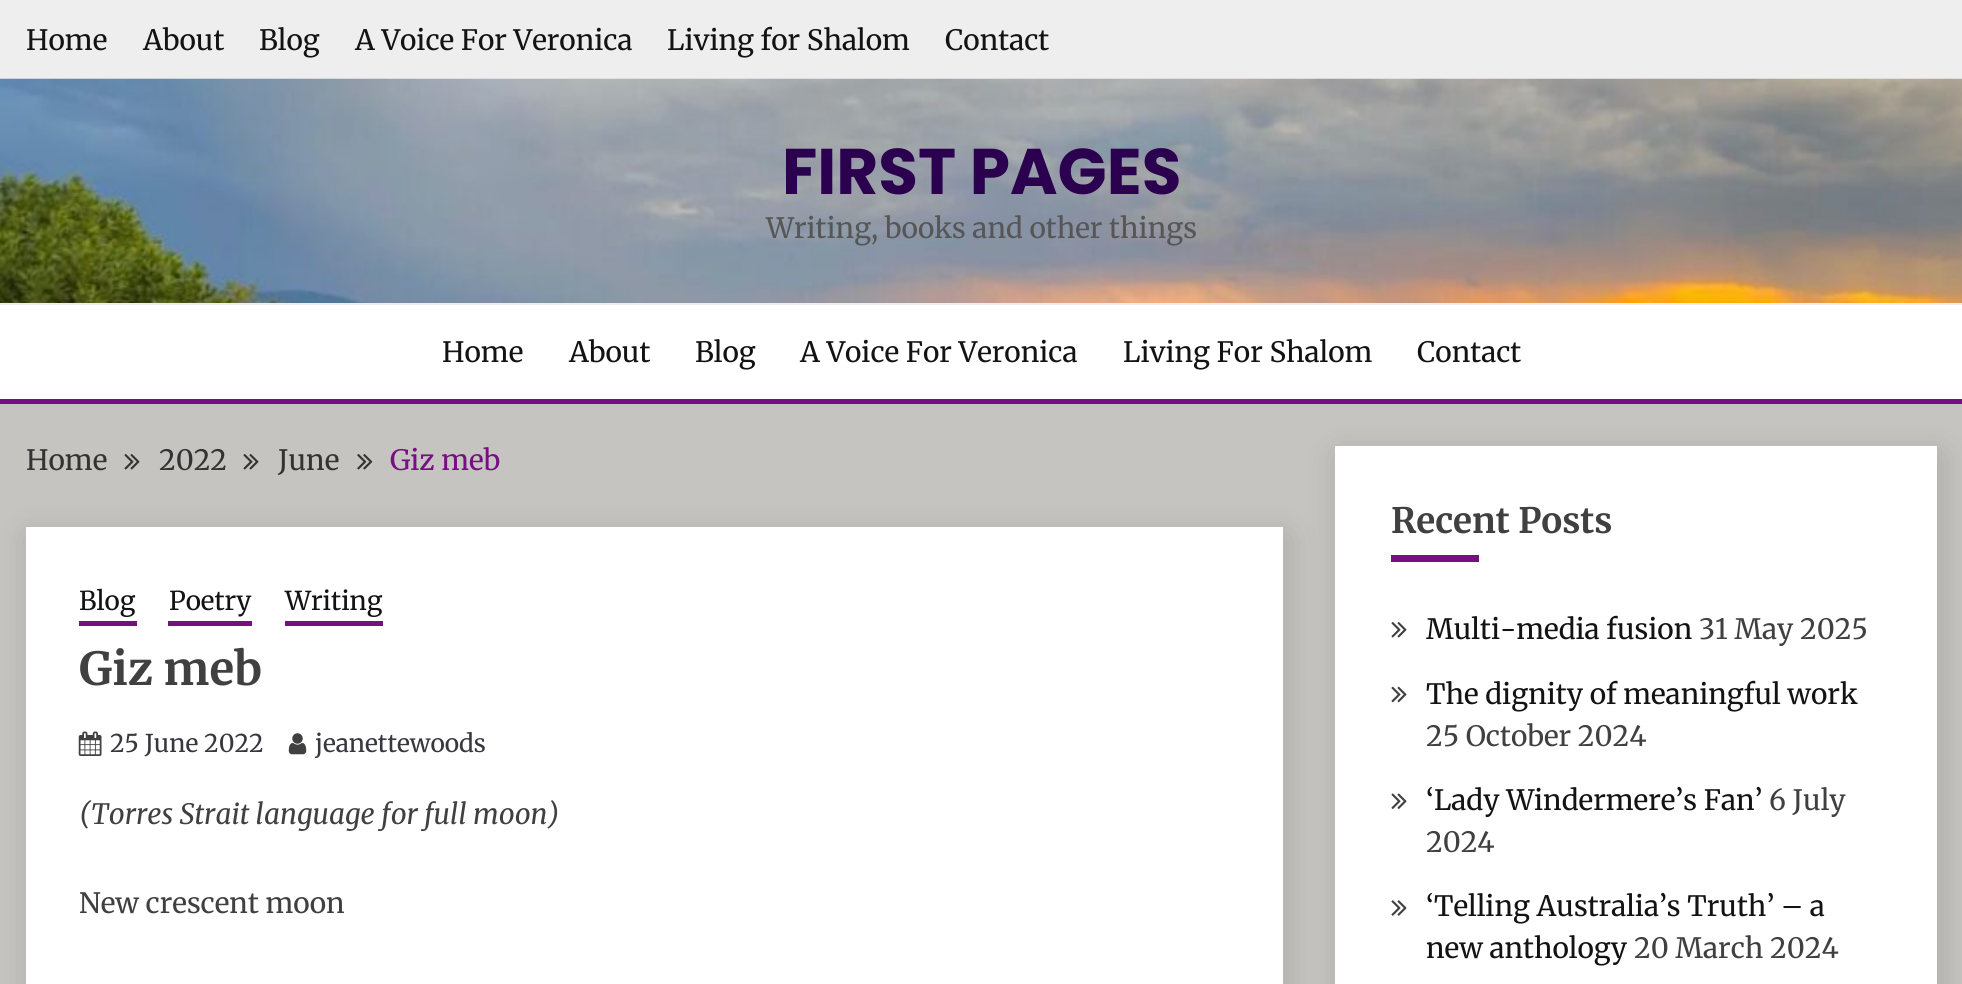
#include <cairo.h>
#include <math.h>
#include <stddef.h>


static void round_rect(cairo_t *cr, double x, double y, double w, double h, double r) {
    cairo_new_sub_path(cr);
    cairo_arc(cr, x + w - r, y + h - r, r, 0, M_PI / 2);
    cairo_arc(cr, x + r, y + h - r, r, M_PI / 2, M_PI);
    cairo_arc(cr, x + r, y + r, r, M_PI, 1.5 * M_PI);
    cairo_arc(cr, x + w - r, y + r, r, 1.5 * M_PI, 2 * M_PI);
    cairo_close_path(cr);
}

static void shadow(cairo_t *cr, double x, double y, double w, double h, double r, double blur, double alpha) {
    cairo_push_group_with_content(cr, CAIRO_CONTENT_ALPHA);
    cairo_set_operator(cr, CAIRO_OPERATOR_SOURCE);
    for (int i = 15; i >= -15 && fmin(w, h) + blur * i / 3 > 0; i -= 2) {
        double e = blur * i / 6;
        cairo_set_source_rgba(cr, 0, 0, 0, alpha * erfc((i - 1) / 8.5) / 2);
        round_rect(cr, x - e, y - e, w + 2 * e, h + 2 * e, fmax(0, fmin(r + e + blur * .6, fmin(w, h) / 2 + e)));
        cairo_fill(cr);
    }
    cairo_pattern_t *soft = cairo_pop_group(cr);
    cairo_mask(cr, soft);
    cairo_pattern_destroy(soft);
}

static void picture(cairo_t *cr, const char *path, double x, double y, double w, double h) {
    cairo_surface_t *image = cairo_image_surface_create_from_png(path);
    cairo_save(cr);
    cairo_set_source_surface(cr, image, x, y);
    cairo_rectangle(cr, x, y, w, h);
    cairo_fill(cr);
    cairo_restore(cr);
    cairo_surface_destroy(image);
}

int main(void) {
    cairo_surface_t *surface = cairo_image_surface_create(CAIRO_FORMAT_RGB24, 1962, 984);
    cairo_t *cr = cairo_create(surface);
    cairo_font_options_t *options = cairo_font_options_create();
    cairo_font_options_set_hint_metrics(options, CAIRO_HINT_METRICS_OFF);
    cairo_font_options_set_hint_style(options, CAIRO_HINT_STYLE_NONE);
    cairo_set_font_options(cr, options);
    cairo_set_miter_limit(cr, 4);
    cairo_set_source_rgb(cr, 0.776, 0.769, 0.753);
    cairo_paint(cr);
    cairo_set_source_rgb(cr, 1, 1, 1);
    cairo_rectangle(cr, 0, 305, 1962, 94);
    cairo_fill(cr);
    cairo_set_source_rgb(cr, 0.933, 0.933, 0.933);
    cairo_rectangle(cr, 0, 0, 1962, 79);
    cairo_fill(cr);
    cairo_select_font_face(cr, "Merriweather", CAIRO_FONT_SLANT_NORMAL, CAIRO_FONT_WEIGHT_NORMAL);
    cairo_set_font_size(cr, 28);
    cairo_set_source_rgb(cr, 0.078, 0.078, 0.075);
    cairo_move_to(cr, 26, 50);
    cairo_show_text(cr, "Home");
    cairo_move_to(cr, 143, 50);
    cairo_show_text(cr, "About");
    cairo_move_to(cr, 259, 50);
    cairo_show_text(cr, "Blog");
    cairo_move_to(cr, 355, 50);
    cairo_show_text(cr, "A Voice For Veronica");
    cairo_move_to(cr, 667, 50);
    cairo_show_text(cr, "Living for Shalom");
    cairo_move_to(cr, 945, 50);
    cairo_show_text(cr, "Contact");
    picture(cr, "img1.png", 0, 78, 1962, 225);
    cairo_set_source_rgb(cr, 0.933, 0.933, 0.933);
    cairo_rectangle(cr, 0, 303, 1962, 2);
    cairo_fill(cr);
    cairo_select_font_face(cr, "Poppins", CAIRO_FONT_SLANT_NORMAL, CAIRO_FONT_WEIGHT_BOLD);
    cairo_set_font_size(cr, 64.5);
    cairo_set_source_rgb(cr, 0.165, 0, 0.31);
    cairo_move_to(cr, 782, 194);
    cairo_show_text(cr, "FIRST PAGES");
    cairo_select_font_face(cr, "Merriweather", CAIRO_FONT_SLANT_NORMAL, CAIRO_FONT_WEIGHT_NORMAL);
    cairo_set_font_size(cr, 28);
    cairo_set_source_rgb(cr, 0.337, 0.337, 0.337);
    cairo_move_to(cr, 766, 238);
    cairo_show_text(cr, "Writing, books and other things");
    cairo_set_source_rgb(cr, 0, 0, 0);
    shadow(cr, 1339, 455, 602, 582, 0, 17.5, 0.14);
    cairo_set_source_rgb(cr, 0.471, 0.055, 0.518);
    cairo_rectangle(cr, 0, 399, 1962, 5);
    cairo_fill(cr);
    cairo_set_source_rgb(cr, 0.078, 0.078, 0.075);
    cairo_move_to(cr, 442, 362);
    cairo_show_text(cr, "Home");
    cairo_move_to(cr, 569, 362);
    cairo_show_text(cr, "About");
    cairo_move_to(cr, 695, 362);
    cairo_show_text(cr, "Blog");
    cairo_move_to(cr, 800, 362);
    cairo_show_text(cr, "A Voice For Veronica");
    cairo_move_to(cr, 1123, 362);
    cairo_show_text(cr, "Living For Shalom");
    cairo_move_to(cr, 1417, 362);
    cairo_show_text(cr, "Contact");
    cairo_set_source_rgb(cr, 0.2, 0.2, 0.2);
    cairo_move_to(cr, 26, 470);
    cairo_show_text(cr, "Home");
    picture(cr, "img2.png", 124, 454, 16, 16);
    cairo_move_to(cr, 159, 470);
    cairo_show_text(cr, "2022");
    picture(cr, "img2.png", 243, 454, 16, 16);
    cairo_move_to(cr, 278, 470);
    cairo_show_text(cr, "June");
    picture(cr, "img3.png", 357, 454, 16, 16);
    cairo_set_source_rgb(cr, 0.471, 0.055, 0.518);
    cairo_move_to(cr, 390, 470);
    cairo_show_text(cr, "Giz meb");
    cairo_set_source_rgb(cr, 0, 0, 0);
    shadow(cr, 30, 536, 1256, 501, 0, 17.5, 0.14);
    cairo_set_source_rgb(cr, 1, 1, 1);
    cairo_rectangle(cr, 26, 527, 1257, 457);
    cairo_fill(cr);
    cairo_set_font_size(cr, 26);
    cairo_set_source_rgb(cr, 0.078, 0.078, 0.075);
    cairo_move_to(cr, 79, 610);
    cairo_show_text(cr, "Blog");
    cairo_set_source_rgb(cr, 0.471, 0.055, 0.518);
    cairo_rectangle(cr, 79, 621, 58, 5);
    cairo_fill(cr);
    cairo_set_source_rgb(cr, 0.078, 0.078, 0.075);
    cairo_move_to(cr, 169, 610);
    cairo_show_text(cr, "Poetry");
    cairo_set_source_rgb(cr, 0.471, 0.055, 0.518);
    cairo_rectangle(cr, 168, 621, 84, 5);
    cairo_fill(cr);
    cairo_set_source_rgb(cr, 0.078, 0.078, 0.075);
    cairo_move_to(cr, 285, 610);
    cairo_show_text(cr, "Writing");
    cairo_set_source_rgb(cr, 0.471, 0.055, 0.518);
    cairo_rectangle(cr, 285, 621, 98, 5);
    cairo_fill(cr);
    cairo_select_font_face(cr, "Merriweather", CAIRO_FONT_SLANT_NORMAL, CAIRO_FONT_WEIGHT_BOLD);
    cairo_set_font_size(cr, 45.5);
    cairo_set_source_rgb(cr, 0.251, 0.251, 0.251);
    cairo_move_to(cr, 79, 685);
    cairo_show_text(cr, "Giz meb");
    picture(cr, "img4.png", 78, 731, 24, 25);
    cairo_select_font_face(cr, "Merriweather", CAIRO_FONT_SLANT_NORMAL, CAIRO_FONT_WEIGHT_NORMAL);
    cairo_set_font_size(cr, 24.5);
    cairo_set_source_rgb(cr, 0.216, 0.216, 0.247);
    cairo_move_to(cr, 110, 752);
    cairo_show_text(cr, "25 June 2022");
    picture(cr, "img5.png", 288, 733, 19, 22);
    cairo_move_to(cr, 315, 752);
    cairo_show_text(cr, "jeanettewoods");
    cairo_select_font_face(cr, "Merriweather Light", CAIRO_FONT_SLANT_ITALIC, CAIRO_FONT_WEIGHT_NORMAL);
    cairo_set_font_size(cr, 28);
    cairo_set_source_rgb(cr, 0.251, 0.251, 0.251);
    cairo_move_to(cr, 79, 824);
    cairo_show_text(cr, "(Torres Strait language for full moon)");
    cairo_select_font_face(cr, "Merriweather", CAIRO_FONT_SLANT_NORMAL, CAIRO_FONT_WEIGHT_NORMAL);
    cairo_move_to(cr, 79, 913);
    cairo_show_text(cr, "New crescent moon");
    cairo_set_source_rgb(cr, 1, 1, 1);
    cairo_rectangle(cr, 1335, 446, 602, 538);
    cairo_fill(cr);
    cairo_select_font_face(cr, "Merriweather", CAIRO_FONT_SLANT_NORMAL, CAIRO_FONT_WEIGHT_BOLD);
    cairo_set_font_size(cr, 35);
    cairo_set_source_rgb(cr, 0.251, 0.251, 0.251);
    cairo_move_to(cr, 1391, 533);
    cairo_show_text(cr, "Recent Posts");
    cairo_set_source_rgb(cr, 0.471, 0.055, 0.518);
    cairo_rectangle(cr, 1391, 555, 88, 7);
    cairo_fill(cr);
    picture(cr, "img6.png", 1391, 622, 16, 16);
    cairo_select_font_face(cr, "Merriweather", CAIRO_FONT_SLANT_NORMAL, CAIRO_FONT_WEIGHT_NORMAL);
    cairo_set_font_size(cr, 28);
    cairo_set_source_rgb(cr, 0.078, 0.078, 0.075);
    cairo_move_to(cr, 1426, 639);
    cairo_show_text(cr, "Multi-media fusion");
    cairo_set_source_rgb(cr, 0.251, 0.251, 0.251);
    cairo_move_to(cr, 1699, 639);
    cairo_show_text(cr, "31 May 2025");
    picture(cr, "img7.png", 1391, 686, 16, 17);
    cairo_set_source_rgb(cr, 0.078, 0.078, 0.075);
    cairo_move_to(cr, 1426, 704);
    cairo_show_text(cr, "The dignity of meaningful work");
    cairo_set_source_rgb(cr, 0.251, 0.251, 0.251);
    cairo_move_to(cr, 1426, 746);
    cairo_show_text(cr, "25 October 2024");
    picture(cr, "img8.png", 1391, 793, 16, 16);
    cairo_set_source_rgb(cr, 0.078, 0.078, 0.075);
    cairo_move_to(cr, 1426, 810);
    cairo_show_text(cr, "‘Lady Windermere’s Fan’");
    cairo_set_source_rgb(cr, 0.251, 0.251, 0.251);
    cairo_move_to(cr, 1769, 810);
    cairo_show_text(cr, "6 July");
    cairo_move_to(cr, 1426, 852);
    cairo_show_text(cr, "2024");
    picture(cr, "img9.png", 1391, 900, 16, 16);
    cairo_set_source_rgb(cr, 0.078, 0.078, 0.075);
    cairo_move_to(cr, 1426, 916);
    cairo_show_text(cr, "‘Telling Australia’s Truth’ – a");
    cairo_move_to(cr, 1426, 958);
    cairo_show_text(cr, "new anthology");
    cairo_set_source_rgb(cr, 0.251, 0.251, 0.251);
    cairo_move_to(cr, 1634, 958);
    cairo_show_text(cr, "20 March 2024");
    cairo_surface_write_to_png(surface, "page.png");
    cairo_font_options_destroy(options);
    cairo_destroy(cr);
    cairo_surface_destroy(surface);
    return 0;
}
